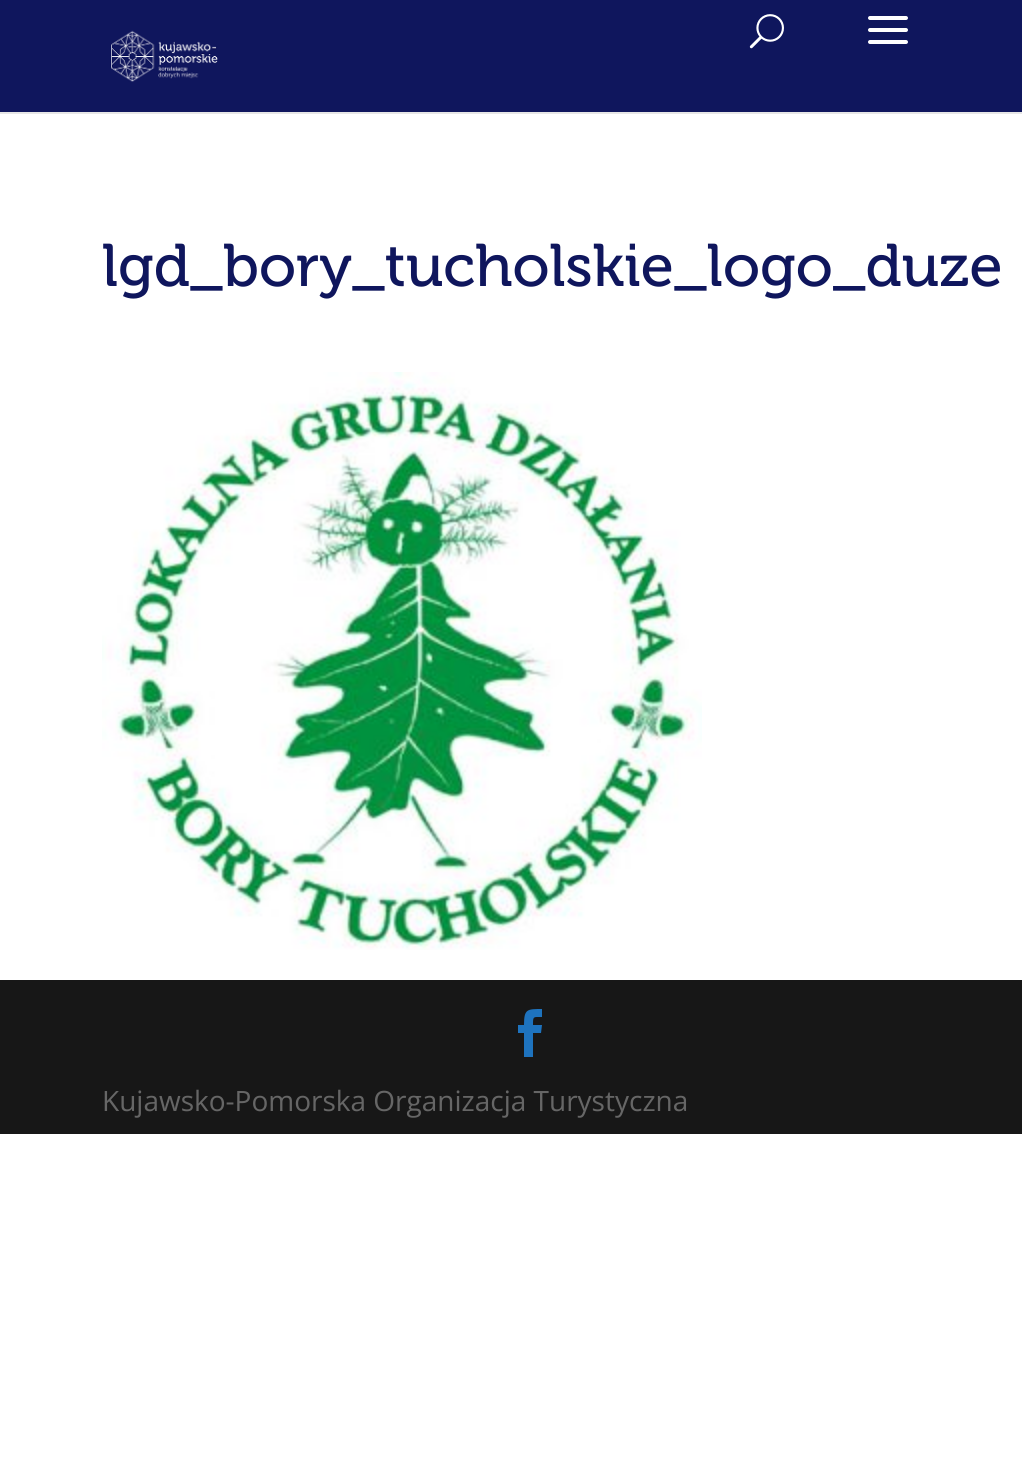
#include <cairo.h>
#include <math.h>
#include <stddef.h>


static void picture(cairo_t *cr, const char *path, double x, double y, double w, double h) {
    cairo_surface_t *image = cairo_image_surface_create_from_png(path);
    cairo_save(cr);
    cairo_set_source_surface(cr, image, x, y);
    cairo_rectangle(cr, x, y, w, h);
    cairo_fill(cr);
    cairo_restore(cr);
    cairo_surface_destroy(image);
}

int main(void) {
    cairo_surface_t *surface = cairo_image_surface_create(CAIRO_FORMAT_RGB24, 1022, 1475);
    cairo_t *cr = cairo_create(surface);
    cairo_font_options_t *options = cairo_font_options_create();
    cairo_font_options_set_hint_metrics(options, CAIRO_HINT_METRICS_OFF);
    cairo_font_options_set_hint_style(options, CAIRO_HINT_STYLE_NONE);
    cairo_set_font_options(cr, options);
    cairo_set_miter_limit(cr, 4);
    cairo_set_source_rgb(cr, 1, 1, 1);
    cairo_paint(cr);
    cairo_set_source_rgb(cr, 0.902, 0.902, 0.902);
    cairo_rectangle(cr, 0, 112, 1022, 2);
    cairo_fill(cr);
    cairo_set_source_rgb(cr, 0.059, 0.086, 0.365);
    cairo_rectangle(cr, 0, 0, 1022, 112);
    cairo_fill(cr);
    picture(cr, "img1.png", 110, 30, 108, 52);
    picture(cr, "img2.png", 749, 14, 35, 35);
    picture(cr, "img3.png", 868, 16, 40, 28);
    cairo_select_font_face(cr, "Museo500", CAIRO_FONT_SLANT_NORMAL, CAIRO_FONT_WEIGHT_NORMAL);
    cairo_set_font_size(cr, 60);
    cairo_move_to(cr, 102, 286);
    cairo_show_text(cr, "lgd_bory_tucholskie_logo_duze");
    picture(cr, "img4.png", 102, 372, 600, 578);
    cairo_set_source_rgb(cr, 0.09, 0.09, 0.09);
    cairo_rectangle(cr, 0, 980, 1022, 154);
    cairo_fill(cr);
    cairo_set_source_rgb(cr, 0.118, 0.451, 0.745);
    cairo_new_path(cr);
    cairo_move_to(cr, 524, 1057);
    cairo_line_to(cr, 533, 1057);
    cairo_line_to(cr, 533, 1033);
    cairo_line_to(cr, 541, 1033);
    cairo_line_to(cr, 542, 1025);
    cairo_line_to(cr, 533, 1025);
    cairo_curve_to(cr, 533, 1016, 533, 1017, 542, 1017);
    cairo_line_to(cr, 542, 1009);
    cairo_curve_to(cr, 527, 1009, 524, 1009, 524, 1025);
    cairo_line_to(cr, 518, 1025);
    cairo_line_to(cr, 518, 1033);
    cairo_line_to(cr, 524, 1033);
    cairo_close_path(cr);
    cairo_fill(cr);
    cairo_select_font_face(cr, "Open Sans", CAIRO_FONT_SLANT_NORMAL, CAIRO_FONT_WEIGHT_NORMAL);
    cairo_set_font_size(cr, 28);
    cairo_set_source_rgb(cr, 0.4, 0.4, 0.4);
    cairo_move_to(cr, 102, 1111);
    cairo_show_text(cr, "Kujawsko-Pomorska Organizacja Turystyczna");
    cairo_surface_write_to_png(surface, "page.png");
    cairo_font_options_destroy(options);
    cairo_destroy(cr);
    cairo_surface_destroy(surface);
    return 0;
}
